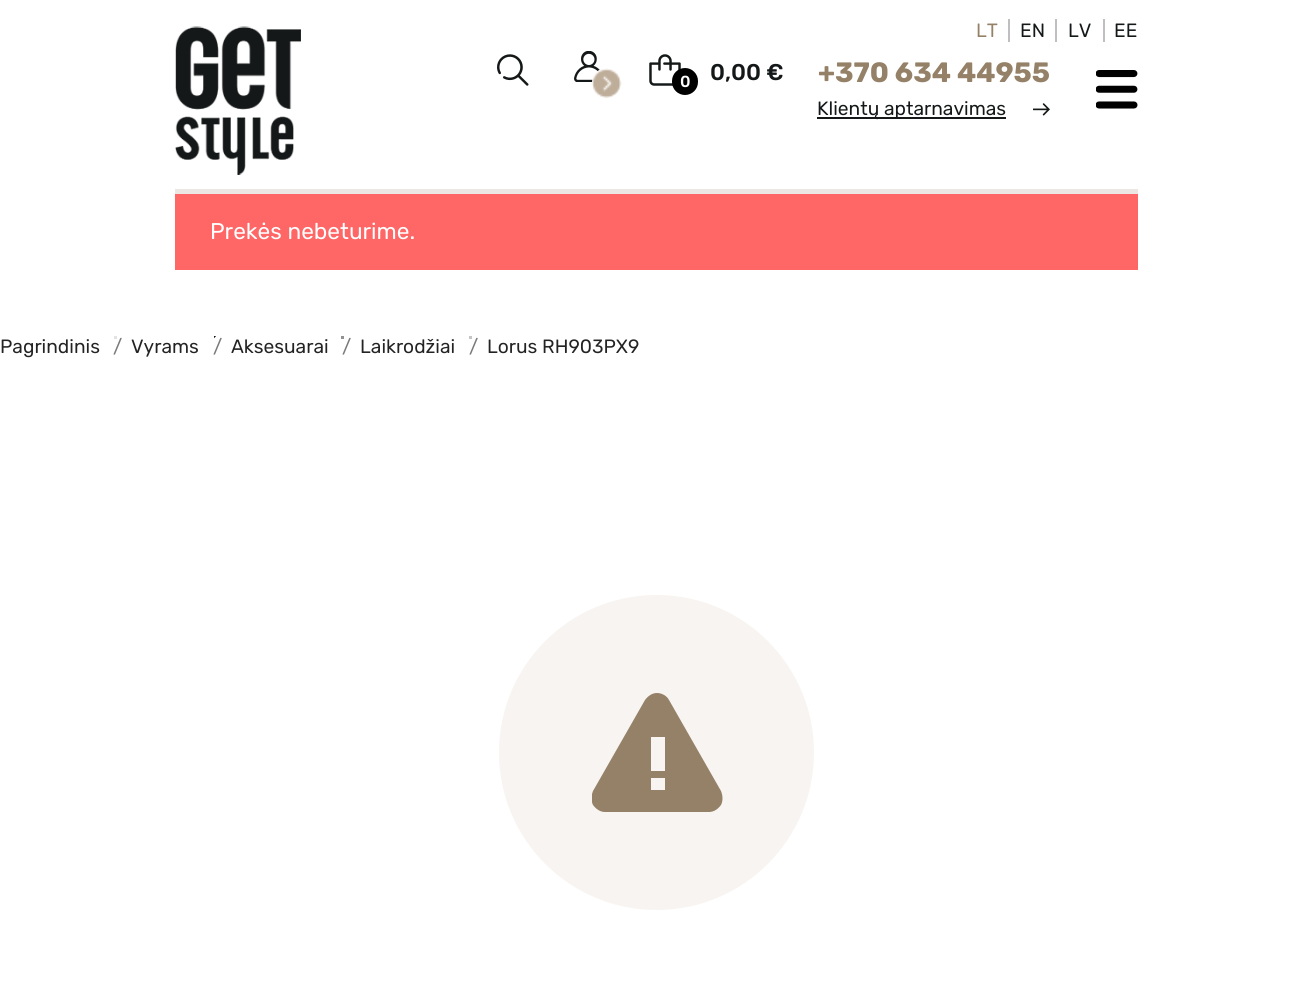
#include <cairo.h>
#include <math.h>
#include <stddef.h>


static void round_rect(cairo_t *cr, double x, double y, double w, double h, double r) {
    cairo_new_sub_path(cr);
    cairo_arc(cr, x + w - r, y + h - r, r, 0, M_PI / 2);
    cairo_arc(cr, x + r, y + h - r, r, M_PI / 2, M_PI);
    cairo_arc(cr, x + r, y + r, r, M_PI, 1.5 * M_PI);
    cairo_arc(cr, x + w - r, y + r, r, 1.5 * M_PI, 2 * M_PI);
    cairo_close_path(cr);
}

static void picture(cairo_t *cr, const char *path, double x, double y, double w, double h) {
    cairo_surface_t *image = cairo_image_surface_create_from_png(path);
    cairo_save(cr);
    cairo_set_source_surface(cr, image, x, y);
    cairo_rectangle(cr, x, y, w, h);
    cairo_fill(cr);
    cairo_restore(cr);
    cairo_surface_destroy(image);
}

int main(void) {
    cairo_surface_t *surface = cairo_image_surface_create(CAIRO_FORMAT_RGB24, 1312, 987);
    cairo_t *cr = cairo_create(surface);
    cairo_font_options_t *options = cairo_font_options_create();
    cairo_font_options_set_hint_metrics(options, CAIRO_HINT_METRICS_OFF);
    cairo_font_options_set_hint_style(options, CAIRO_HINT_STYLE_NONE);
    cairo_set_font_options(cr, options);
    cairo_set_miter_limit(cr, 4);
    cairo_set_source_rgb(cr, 1, 1, 1);
    cairo_paint(cr);
    cairo_set_source_rgb(cr, 0.922, 0.906, 0.89);
    cairo_rectangle(cr, 175, 189, 963, 5);
    cairo_fill(cr);
    picture(cr, "img1.png", 175, 26, 126, 149);
    cairo_select_font_face(cr, "Rubik", CAIRO_FONT_SLANT_NORMAL, CAIRO_FONT_WEIGHT_NORMAL);
    cairo_set_font_size(cr, 19.25);
    cairo_set_source_rgb(cr, 0.58, 0.506, 0.404);
    cairo_move_to(cr, 976, 37);
    cairo_show_text(cr, "LT");
    cairo_set_source_rgb(cr, 0.753, 0.745, 0.757);
    cairo_rectangle(cr, 1008, 19, 2, 23);
    cairo_fill(cr);
    cairo_set_source_rgb(cr, 0.082, 0.094, 0.094);
    cairo_move_to(cr, 1020, 37);
    cairo_show_text(cr, "EN");
    cairo_set_source_rgb(cr, 0.753, 0.745, 0.757);
    cairo_rectangle(cr, 1055, 19, 2, 23);
    cairo_fill(cr);
    cairo_set_source_rgb(cr, 0.082, 0.094, 0.094);
    cairo_move_to(cr, 1068, 37);
    cairo_show_text(cr, "LV");
    cairo_set_source_rgb(cr, 0.753, 0.745, 0.757);
    cairo_rectangle(cr, 1103, 19, 2, 23);
    cairo_fill(cr);
    cairo_set_source_rgb(cr, 0.082, 0.094, 0.094);
    cairo_move_to(cr, 1114, 37);
    cairo_show_text(cr, "EE");
    picture(cr, "img2.png", 497, 54, 32, 32);
    picture(cr, "img3.png", 574, 51, 26, 31);
    cairo_set_source_rgb(cr, 1, 1, 1);
    round_rect(cr, 592, 68, 29, 30, 14.5);
    cairo_fill(cr);
    picture(cr, "img4.png", 591, 68, 31, 30);
    picture(cr, "img5.png", 649, 54, 32, 32);
    cairo_set_source_rgb(cr, 0, 0, 0);
    round_rect(cr, 672, 68, 26, 27, 13);
    cairo_fill(cr);
    cairo_select_font_face(cr, "Rubik Medium", CAIRO_FONT_SLANT_NORMAL, CAIRO_FONT_WEIGHT_NORMAL);
    cairo_set_font_size(cr, 16);
    cairo_set_source_rgb(cr, 1, 1, 1);
    cairo_move_to(cr, 680, 87);
    cairo_show_text(cr, "0");
    cairo_set_font_size(cr, 22.75);
    cairo_set_source_rgb(cr, 0.082, 0.094, 0.094);
    cairo_move_to(cr, 710, 80);
    cairo_show_text(cr, "0,00 €");
    cairo_select_font_face(cr, "Rubik", CAIRO_FONT_SLANT_NORMAL, CAIRO_FONT_WEIGHT_BOLD);
    cairo_set_font_size(cr, 28);
    cairo_set_source_rgb(cr, 0.58, 0.506, 0.404);
    cairo_move_to(cr, 818, 82);
    cairo_show_text(cr, "+370 634 44955");
    cairo_set_source_rgb(cr, 0.082, 0.094, 0.094);
    cairo_rectangle(cr, 817, 117, 189, 2);
    cairo_fill(cr);
    cairo_select_font_face(cr, "Rubik", CAIRO_FONT_SLANT_NORMAL, CAIRO_FONT_WEIGHT_NORMAL);
    cairo_set_font_size(cr, 19.25);
    cairo_move_to(cr, 817, 115);
    cairo_show_text(cr, "Klientų aptarnavimas");
    picture(cr, "img6.png", 1033, 103, 17, 13);
    picture(cr, "img7.png", 1096, 70, 42, 39);
    cairo_set_source_rgb(cr, 1, 0.404, 0.404);
    cairo_rectangle(cr, 175, 194, 963, 76);
    cairo_fill(cr);
    cairo_set_font_size(cr, 22.75);
    cairo_set_source_rgb(cr, 1, 1, 1);
    cairo_move_to(cr, 210, 239);
    cairo_show_text(cr, "Prekės nebeturime.");
    cairo_set_font_size(cr, 19.25);
    cairo_set_source_rgb(cr, 0.137, 0.137, 0.137);
    cairo_move_to(cr, 0, 353);
    cairo_show_text(cr, "Pagrindinis");
    cairo_set_source_rgb(cr, 0.89, 0.89, 0.89);
    cairo_rectangle(cr, 114, 336, 3, 3);
    cairo_fill(cr);
    cairo_set_source_rgb(cr, 0.478, 0.478, 0.478);
    cairo_move_to(cr, 113, 353);
    cairo_show_text(cr, "/");
    picture(cr, "img8.png", 214, 336, 2, 3);
    cairo_set_source_rgb(cr, 0.137, 0.137, 0.137);
    cairo_move_to(cr, 131, 353);
    cairo_show_text(cr, "Vyrams");
    cairo_set_source_rgb(cr, 0.478, 0.478, 0.478);
    cairo_move_to(cr, 213, 353);
    cairo_show_text(cr, "/");
    cairo_set_source_rgb(cr, 0.137, 0.137, 0.137);
    cairo_move_to(cr, 231, 353);
    cairo_show_text(cr, "Aksesuarai");
    cairo_set_source_rgb(cr, 0.569, 0.573, 0.573);
    cairo_rectangle(cr, 341, 336, 3, 3);
    cairo_fill(cr);
    cairo_set_source_rgb(cr, 0.478, 0.478, 0.478);
    cairo_move_to(cr, 342, 353);
    cairo_show_text(cr, "/");
    cairo_set_source_rgb(cr, 0.137, 0.137, 0.137);
    cairo_move_to(cr, 360, 353);
    cairo_show_text(cr, "Laikrodžiai");
    cairo_set_source_rgb(cr, 0.773, 0.773, 0.773);
    cairo_rectangle(cr, 469, 336, 3, 3);
    cairo_fill(cr);
    cairo_set_source_rgb(cr, 0.478, 0.478, 0.478);
    cairo_move_to(cr, 469, 353);
    cairo_show_text(cr, "/");
    cairo_set_source_rgb(cr, 0.137, 0.137, 0.137);
    cairo_move_to(cr, 487, 353);
    cairo_show_text(cr, "Lorus RH903PX9");
    cairo_set_source_rgb(cr, 0.969, 0.957, 0.945);
    cairo_new_path(cr);
    cairo_arc(cr, 656.5, 752.5, 157.5, 0, 2 * M_PI);
    cairo_fill(cr);
    cairo_save(cr);
    cairo_rectangle(cr, 592, 693, 131, 119);
    cairo_clip(cr);
    cairo_set_source_rgb(cr, 0.58, 0.506, 0.404);
    cairo_set_fill_rule(cr, CAIRO_FILL_RULE_EVEN_ODD);
    cairo_new_path(cr);
    cairo_move_to(cr, 721, 791);
    cairo_line_to(cr, 669, 700);
    cairo_curve_to(cr, 667, 696, 662, 693, 657, 693);
    cairo_curve_to(cr, 652, 693, 648, 696, 645, 700);
    cairo_line_to(cr, 593, 791);
    cairo_curve_to(cr, 591, 796, 591, 801, 593, 805);
    cairo_curve_to(cr, 596, 809, 600, 812, 605, 812);
    cairo_line_to(cr, 709, 812);
    cairo_curve_to(cr, 714, 812, 718, 809, 721, 805);
    cairo_curve_to(cr, 723, 801, 723, 796, 721, 791);
    cairo_close_path(cr);
    cairo_move_to(cr, 665, 790);
    cairo_line_to(cr, 651, 790);
    cairo_line_to(cr, 651, 778);
    cairo_line_to(cr, 665, 778);
    cairo_close_path(cr);
    cairo_move_to(cr, 665, 771);
    cairo_line_to(cr, 651, 771);
    cairo_line_to(cr, 651, 737);
    cairo_line_to(cr, 665, 737);
    cairo_close_path(cr);
    cairo_fill(cr);
    cairo_restore(cr);
    cairo_surface_write_to_png(surface, "page.png");
    cairo_font_options_destroy(options);
    cairo_destroy(cr);
    cairo_surface_destroy(surface);
    return 0;
}
